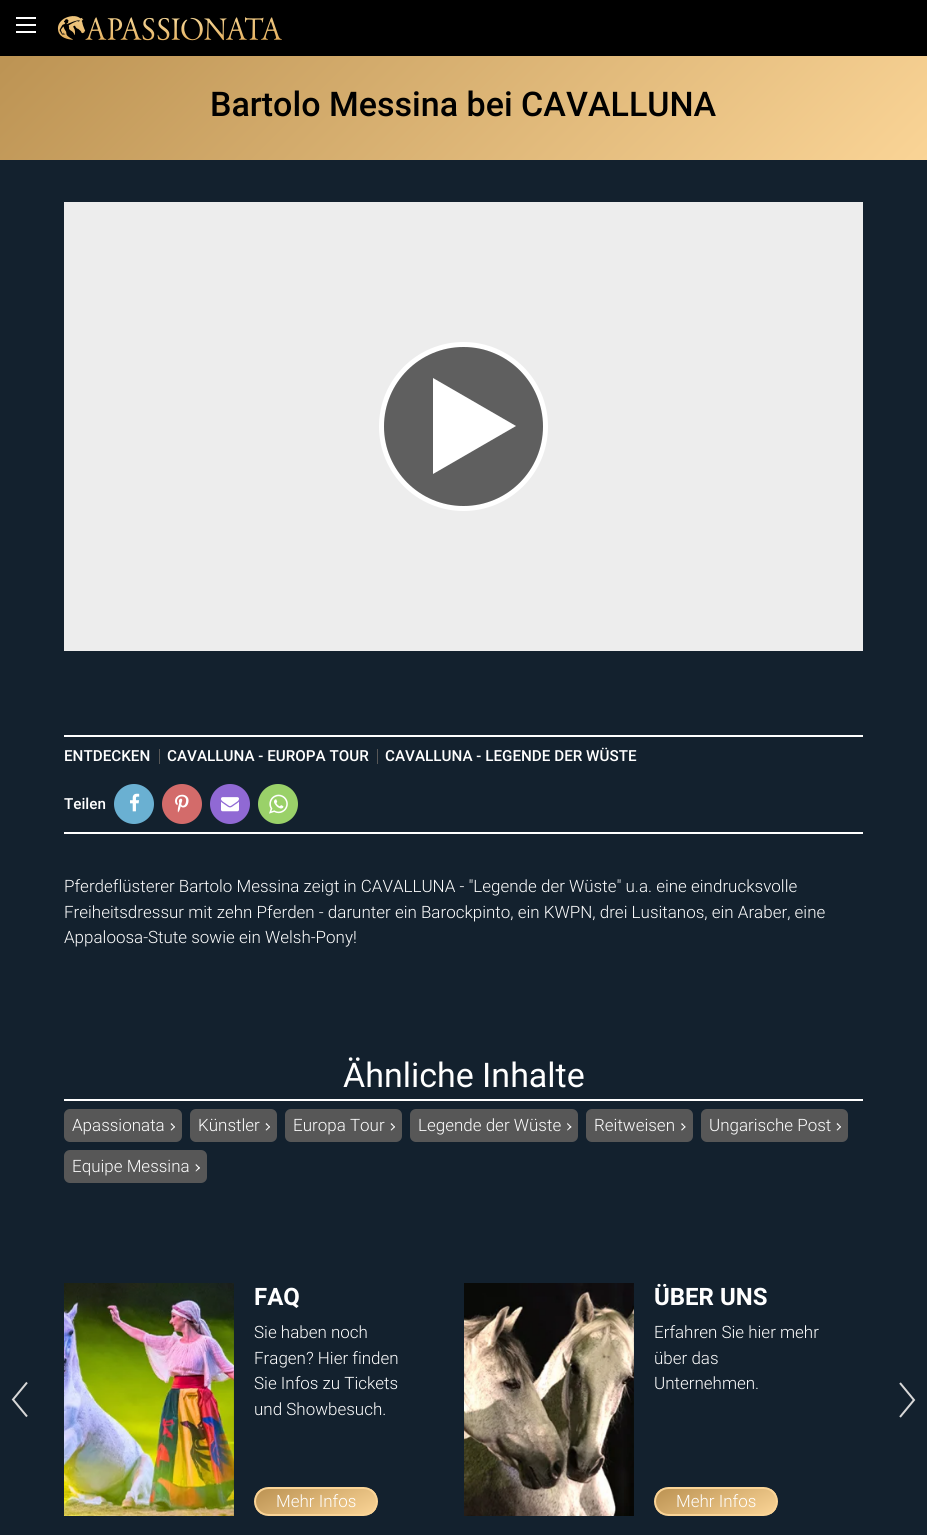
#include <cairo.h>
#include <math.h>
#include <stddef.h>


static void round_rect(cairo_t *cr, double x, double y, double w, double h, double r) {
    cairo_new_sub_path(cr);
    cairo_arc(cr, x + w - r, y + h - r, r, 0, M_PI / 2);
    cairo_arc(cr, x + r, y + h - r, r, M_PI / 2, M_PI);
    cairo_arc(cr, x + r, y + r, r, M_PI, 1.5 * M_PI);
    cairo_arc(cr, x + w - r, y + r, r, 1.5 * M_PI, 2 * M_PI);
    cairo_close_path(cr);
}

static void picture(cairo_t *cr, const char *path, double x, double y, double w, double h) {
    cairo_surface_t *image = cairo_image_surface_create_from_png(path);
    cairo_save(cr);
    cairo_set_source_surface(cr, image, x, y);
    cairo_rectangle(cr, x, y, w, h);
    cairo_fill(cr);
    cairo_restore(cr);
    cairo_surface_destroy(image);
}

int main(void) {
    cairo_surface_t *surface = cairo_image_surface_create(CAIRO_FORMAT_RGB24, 927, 1535);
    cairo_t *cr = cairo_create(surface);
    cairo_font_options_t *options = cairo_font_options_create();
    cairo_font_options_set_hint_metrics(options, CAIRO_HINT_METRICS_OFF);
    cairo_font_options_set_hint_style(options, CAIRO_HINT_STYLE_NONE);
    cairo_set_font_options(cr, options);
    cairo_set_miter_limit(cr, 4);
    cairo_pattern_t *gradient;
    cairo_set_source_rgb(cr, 0.075, 0.129, 0.18);
    cairo_paint(cr);
    cairo_set_source_rgb(cr, 0, 0, 0);
    cairo_rectangle(cr, 0, 0, 927, 56);
    cairo_fill(cr);
    cairo_set_source_rgb(cr, 1, 1, 1);
    cairo_rectangle(cr, 16, 17, 20, 2);
    cairo_fill(cr);
    cairo_rectangle(cr, 16, 24, 20, 2);
    cairo_fill(cr);
    cairo_rectangle(cr, 16, 31, 20, 2);
    cairo_fill(cr);
    picture(cr, "img1.png", 57, 16, 225, 25);
    gradient = cairo_pattern_create_linear(723, 364, 204, -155);
    cairo_pattern_add_color_stop_rgba(gradient, 0, 0.98, 0.831, 0.588, 1);
    cairo_pattern_add_color_stop_rgba(gradient, 1, 0.737, 0.576, 0.325, 1);
    cairo_set_source(cr, gradient);
    cairo_pattern_destroy(gradient);
    cairo_rectangle(cr, 0, 56, 927, 104);
    cairo_fill(cr);
    cairo_select_font_face(cr, "Roboto Medium", CAIRO_FONT_SLANT_NORMAL, CAIRO_FONT_WEIGHT_NORMAL);
    cairo_set_font_size(cr, 34);
    cairo_set_source_rgb(cr, 0, 0, 0);
    cairo_move_to(cr, 210, 116);
    cairo_show_text(cr, "Bartolo Messina bei CAVALLUNA");
    cairo_set_source_rgb(cr, 0.929, 0.929, 0.929);
    cairo_rectangle(cr, 64, 202, 799, 449);
    cairo_fill(cr);
    cairo_arc(cr, 463.5, 426.5, 82, 0, 2 * M_PI);
    cairo_set_source_rgb(cr, 1, 1, 1);
    cairo_set_line_width(cr, 5);
    cairo_stroke(cr);
    cairo_set_source_rgba(cr, 0, 0, 0, 0.6);
    cairo_arc(cr, 463.5, 426.5, 79.5, 0, 2 * M_PI);
    cairo_fill(cr);
    cairo_set_source_rgb(cr, 1, 1, 1);
    cairo_new_path(cr);
    cairo_move_to(cr, 516, 426);
    cairo_line_to(cr, 433, 378);
    cairo_line_to(cr, 433, 474);
    cairo_close_path(cr);
    cairo_fill(cr);
    cairo_rectangle(cr, 64, 735, 799, 2);
    cairo_fill(cr);
    cairo_rectangle(cr, 64, 832, 799, 2);
    cairo_fill(cr);
    cairo_set_font_size(cr, 15.25);
    cairo_move_to(cr, 64, 761);
    cairo_show_text(cr, "ENTDECKEN");
    cairo_set_source_rgb(cr, 0.341, 0.341, 0.341);
    cairo_rectangle(cr, 159, 749, 1, 15);
    cairo_fill(cr);
    cairo_set_source_rgb(cr, 1, 1, 1);
    cairo_move_to(cr, 167, 761);
    cairo_show_text(cr, "CAVALLUNA - EUROPA TOUR");
    cairo_set_source_rgb(cr, 0.341, 0.341, 0.341);
    cairo_rectangle(cr, 377, 749, 1, 15);
    cairo_fill(cr);
    cairo_set_source_rgb(cr, 1, 1, 1);
    cairo_move_to(cr, 385, 761);
    cairo_show_text(cr, "CAVALLUNA - LEGENDE DER WÜSTE");
    cairo_move_to(cr, 64, 809);
    cairo_show_text(cr, "Teilen");
    cairo_set_source_rgb(cr, 0.416, 0.69, 0.824);
    cairo_new_path(cr);
    cairo_arc(cr, 134, 804, 20, 0, 2 * M_PI);
    cairo_fill(cr);
    picture(cr, "img2.png", 130, 793, 10, 19);
    cairo_set_source_rgb(cr, 0.827, 0.42, 0.416);
    cairo_arc(cr, 182, 804, 20, 0, 2 * M_PI);
    cairo_fill(cr);
    picture(cr, "img3.png", 175, 794, 14, 19);
    cairo_set_source_rgb(cr, 0.565, 0.412, 0.831);
    cairo_arc(cr, 230, 804, 20, 0, 2 * M_PI);
    cairo_fill(cr);
    picture(cr, "img4.png", 221, 797, 18, 15);
    cairo_set_source_rgb(cr, 0.604, 0.82, 0.412);
    cairo_arc(cr, 278, 804, 20, 0, 2 * M_PI);
    cairo_fill(cr);
    picture(cr, "img5.png", 269, 794, 19, 20);
    cairo_select_font_face(cr, "Roboto Light", CAIRO_FONT_SLANT_NORMAL, CAIRO_FONT_WEIGHT_NORMAL);
    cairo_set_font_size(cr, 17);
    cairo_set_source_rgb(cr, 1, 1, 1);
    cairo_move_to(cr, 64, 892);
    cairo_show_text(cr, "Pferdeflüsterer Bartolo Messina zeigt in CAVALLUNA - \"Legende der Wüste\" u.a. eine eindrucksvolle");
    cairo_move_to(cr, 64, 918);
    cairo_show_text(cr, "Freiheitsdressur mit zehn Pferden - darunter ein Barockpinto, ein KWPN, drei Lusitanos, ein Araber, eine");
    cairo_move_to(cr, 64, 943);
    cairo_show_text(cr, "Appaloosa-Stute sowie ein Welsh-Pony!");
    cairo_rectangle(cr, 64, 1099, 799, 2);
    cairo_fill(cr);
    cairo_select_font_face(cr, "Roboto", CAIRO_FONT_SLANT_NORMAL, CAIRO_FONT_WEIGHT_NORMAL);
    cairo_set_font_size(cr, 34);
    cairo_move_to(cr, 343, 1087);
    cairo_show_text(cr, "Ähnliche Inhalte");
    cairo_set_source_rgb(cr, 0.341, 0.341, 0.341);
    round_rect(cr, 64, 1109, 118, 33, 6);
    cairo_fill(cr);
    cairo_select_font_face(cr, "Roboto Light", CAIRO_FONT_SLANT_NORMAL, CAIRO_FONT_WEIGHT_NORMAL);
    cairo_set_font_size(cr, 17);
    cairo_set_source_rgb(cr, 1, 1, 1);
    cairo_move_to(cr, 72, 1131);
    cairo_show_text(cr, "Apassionata");
    cairo_new_path(cr);
    cairo_move_to(cr, 170.5, 1124);
    cairo_line_to(cr, 171.5, 1123);
    cairo_line_to(cr, 175, 1127);
    cairo_line_to(cr, 174.5, 1127.5);
    cairo_close_path(cr);
    cairo_fill(cr);
    cairo_new_path(cr);
    cairo_move_to(cr, 170.5, 1130);
    cairo_line_to(cr, 174.5, 1126);
    cairo_line_to(cr, 175, 1127);
    cairo_line_to(cr, 171.5, 1130.5);
    cairo_close_path(cr);
    cairo_fill(cr);
    cairo_set_source_rgb(cr, 0.341, 0.341, 0.341);
    round_rect(cr, 190, 1109, 87, 33, 6);
    cairo_fill(cr);
    cairo_set_source_rgb(cr, 1, 1, 1);
    cairo_move_to(cr, 198, 1131);
    cairo_show_text(cr, "Künstler");
    cairo_new_path(cr);
    cairo_move_to(cr, 265.5, 1124);
    cairo_line_to(cr, 266.5, 1123);
    cairo_line_to(cr, 270, 1127);
    cairo_line_to(cr, 269.5, 1127.5);
    cairo_close_path(cr);
    cairo_fill(cr);
    cairo_new_path(cr);
    cairo_move_to(cr, 265.5, 1130);
    cairo_line_to(cr, 269.5, 1126);
    cairo_line_to(cr, 270, 1127);
    cairo_line_to(cr, 266.5, 1130.5);
    cairo_close_path(cr);
    cairo_fill(cr);
    cairo_set_source_rgb(cr, 0.341, 0.341, 0.341);
    round_rect(cr, 285, 1109, 117, 33, 6);
    cairo_fill(cr);
    cairo_set_source_rgb(cr, 1, 1, 1);
    cairo_move_to(cr, 293, 1131);
    cairo_show_text(cr, "Europa Tour");
    cairo_new_path(cr);
    cairo_move_to(cr, 390.5, 1124);
    cairo_line_to(cr, 391.5, 1123);
    cairo_line_to(cr, 395, 1127);
    cairo_line_to(cr, 394.5, 1127.5);
    cairo_close_path(cr);
    cairo_fill(cr);
    cairo_new_path(cr);
    cairo_move_to(cr, 390.5, 1130);
    cairo_line_to(cr, 394.5, 1126);
    cairo_line_to(cr, 395, 1127);
    cairo_line_to(cr, 391.5, 1130.5);
    cairo_close_path(cr);
    cairo_fill(cr);
    cairo_set_source_rgb(cr, 0.341, 0.341, 0.341);
    round_rect(cr, 410, 1109, 168, 33, 6);
    cairo_fill(cr);
    cairo_set_source_rgb(cr, 1, 1, 1);
    cairo_move_to(cr, 418, 1131);
    cairo_show_text(cr, "Legende der Wüste");
    cairo_new_path(cr);
    cairo_move_to(cr, 567, 1124);
    cairo_line_to(cr, 567.5, 1123);
    cairo_line_to(cr, 571.5, 1127);
    cairo_line_to(cr, 570.5, 1127.5);
    cairo_close_path(cr);
    cairo_fill(cr);
    cairo_new_path(cr);
    cairo_move_to(cr, 567, 1130);
    cairo_line_to(cr, 570.5, 1126);
    cairo_line_to(cr, 571.5, 1127);
    cairo_line_to(cr, 567.5, 1130.5);
    cairo_close_path(cr);
    cairo_fill(cr);
    cairo_set_source_rgb(cr, 0.341, 0.341, 0.341);
    round_rect(cr, 586, 1109, 107, 33, 6);
    cairo_fill(cr);
    cairo_set_source_rgb(cr, 1, 1, 1);
    cairo_move_to(cr, 594, 1131);
    cairo_show_text(cr, "Reitweisen");
    cairo_new_path(cr);
    cairo_move_to(cr, 681, 1124);
    cairo_line_to(cr, 682, 1123);
    cairo_line_to(cr, 685.5, 1127);
    cairo_line_to(cr, 685, 1127.5);
    cairo_close_path(cr);
    cairo_fill(cr);
    cairo_new_path(cr);
    cairo_move_to(cr, 681, 1130);
    cairo_line_to(cr, 685, 1126);
    cairo_line_to(cr, 685.5, 1127);
    cairo_line_to(cr, 682, 1130.5);
    cairo_close_path(cr);
    cairo_fill(cr);
    cairo_set_source_rgb(cr, 0.341, 0.341, 0.341);
    round_rect(cr, 701, 1109, 147, 33, 6);
    cairo_fill(cr);
    cairo_set_source_rgb(cr, 1, 1, 1);
    cairo_move_to(cr, 709, 1131);
    cairo_show_text(cr, "Ungarische Post");
    cairo_new_path(cr);
    cairo_move_to(cr, 836.5, 1124);
    cairo_line_to(cr, 837.5, 1123);
    cairo_line_to(cr, 841, 1127);
    cairo_line_to(cr, 840.5, 1127.5);
    cairo_close_path(cr);
    cairo_fill(cr);
    cairo_new_path(cr);
    cairo_move_to(cr, 836.5, 1130);
    cairo_line_to(cr, 840.5, 1126);
    cairo_line_to(cr, 841, 1127);
    cairo_line_to(cr, 837.5, 1130.5);
    cairo_close_path(cr);
    cairo_fill(cr);
    cairo_set_source_rgb(cr, 0.341, 0.341, 0.341);
    round_rect(cr, 64, 1150, 143, 33, 6);
    cairo_fill(cr);
    cairo_set_source_rgb(cr, 1, 1, 1);
    cairo_move_to(cr, 72, 1172);
    cairo_show_text(cr, "Equipe Messina");
    cairo_new_path(cr);
    cairo_move_to(cr, 195.5, 1165);
    cairo_line_to(cr, 196, 1164);
    cairo_line_to(cr, 200, 1168);
    cairo_line_to(cr, 199, 1168.5);
    cairo_close_path(cr);
    cairo_fill(cr);
    cairo_new_path(cr);
    cairo_move_to(cr, 195.5, 1171);
    cairo_line_to(cr, 199, 1167);
    cairo_line_to(cr, 200, 1168);
    cairo_line_to(cr, 196, 1171.5);
    cairo_close_path(cr);
    cairo_fill(cr);
    picture(cr, "img6.png", 64, 1283, 170, 233);
    cairo_select_font_face(cr, "Roboto", CAIRO_FONT_SLANT_NORMAL, CAIRO_FONT_WEIGHT_BOLD);
    cairo_set_font_size(cr, 24);
    cairo_move_to(cr, 254, 1305);
    cairo_show_text(cr, "FAQ");
    cairo_select_font_face(cr, "Roboto Light", CAIRO_FONT_SLANT_NORMAL, CAIRO_FONT_WEIGHT_NORMAL);
    cairo_set_font_size(cr, 17);
    cairo_move_to(cr, 254, 1338);
    cairo_show_text(cr, "Sie haben noch");
    cairo_move_to(cr, 254, 1364);
    cairo_show_text(cr, "Fragen? Hier finden");
    cairo_move_to(cr, 254, 1389);
    cairo_show_text(cr, "Sie Infos zu Tickets");
    cairo_move_to(cr, 254, 1415);
    cairo_show_text(cr, "und Showbesuch.");
    cairo_save(cr);
    round_rect(cr, 254, 1487, 124, 29, 14.5);
    cairo_clip(cr);
    gradient = cairo_pattern_create_linear(332, 1535, 300, 1468);
    cairo_pattern_add_color_stop_rgba(gradient, 0, 0.98, 0.831, 0.588, 1);
    cairo_pattern_add_color_stop_rgba(gradient, 1, 0.737, 0.576, 0.325, 1);
    cairo_set_source(cr, gradient);
    cairo_pattern_destroy(gradient);
    cairo_rectangle(cr, 256, 1489, 120, 25);
    cairo_fill(cr);
    cairo_restore(cr);
    round_rect(cr, 255, 1488, 122, 27, 13.5);
    cairo_set_source_rgb(cr, 0.98, 0.831, 0.588);
    cairo_set_line_width(cr, 2);
    cairo_stroke(cr);
    cairo_set_source_rgb(cr, 1, 1, 1);
    cairo_move_to(cr, 276, 1507);
    cairo_show_text(cr, "Mehr Infos");
    picture(cr, "img7.png", 464, 1283, 170, 233);
    cairo_select_font_face(cr, "Roboto", CAIRO_FONT_SLANT_NORMAL, CAIRO_FONT_WEIGHT_BOLD);
    cairo_set_font_size(cr, 24);
    cairo_move_to(cr, 654, 1305);
    cairo_show_text(cr, "ÜBER UNS");
    cairo_select_font_face(cr, "Roboto Light", CAIRO_FONT_SLANT_NORMAL, CAIRO_FONT_WEIGHT_NORMAL);
    cairo_set_font_size(cr, 17);
    cairo_move_to(cr, 654, 1338);
    cairo_show_text(cr, "Erfahren Sie hier mehr");
    cairo_move_to(cr, 654, 1364);
    cairo_show_text(cr, "über das");
    cairo_move_to(cr, 654, 1389);
    cairo_show_text(cr, "Unternehmen.");
    cairo_save(cr);
    round_rect(cr, 654, 1487, 124, 29, 14.5);
    cairo_clip(cr);
    gradient = cairo_pattern_create_linear(732, 1535, 700, 1468);
    cairo_pattern_add_color_stop_rgba(gradient, 0, 0.98, 0.831, 0.588, 1);
    cairo_pattern_add_color_stop_rgba(gradient, 1, 0.737, 0.576, 0.325, 1);
    cairo_set_source(cr, gradient);
    cairo_pattern_destroy(gradient);
    cairo_rectangle(cr, 656, 1489, 120, 25);
    cairo_fill(cr);
    cairo_restore(cr);
    round_rect(cr, 655, 1488, 122, 27, 13.5);
    cairo_set_source_rgb(cr, 0.98, 0.831, 0.588);
    cairo_stroke(cr);
    cairo_set_source_rgb(cr, 1, 1, 1);
    cairo_move_to(cr, 676, 1507);
    cairo_show_text(cr, "Mehr Infos");
    cairo_new_path(cr);
    cairo_move_to(cr, 27, 1382.5);
    cairo_line_to(cr, 13, 1399.5);
    cairo_line_to(cr, 27, 1416.5);
    cairo_set_source_rgb(cr, 0.847, 0.847, 0.847);
    cairo_stroke(cr);
    cairo_new_path(cr);
    cairo_move_to(cr, 900, 1417);
    cairo_line_to(cr, 914, 1400);
    cairo_line_to(cr, 900, 1383);
    cairo_stroke(cr);
    cairo_surface_write_to_png(surface, "page.png");
    cairo_font_options_destroy(options);
    cairo_destroy(cr);
    cairo_surface_destroy(surface);
    return 0;
}
